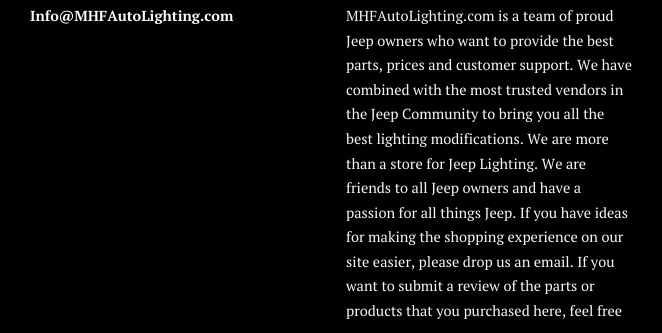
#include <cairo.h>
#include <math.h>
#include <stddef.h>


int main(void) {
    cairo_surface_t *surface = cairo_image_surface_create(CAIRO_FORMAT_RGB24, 662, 333);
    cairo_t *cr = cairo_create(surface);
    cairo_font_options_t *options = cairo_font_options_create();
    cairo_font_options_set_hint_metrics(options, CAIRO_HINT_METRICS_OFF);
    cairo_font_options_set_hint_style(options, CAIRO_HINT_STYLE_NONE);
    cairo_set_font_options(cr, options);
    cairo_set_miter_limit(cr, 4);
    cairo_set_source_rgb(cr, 0, 0, 0);
    cairo_paint(cr);
    cairo_select_font_face(cr, "PT Serif", CAIRO_FONT_SLANT_NORMAL, CAIRO_FONT_WEIGHT_BOLD);
    cairo_set_font_size(cr, 14.5);
    cairo_set_source_rgb(cr, 0.969, 0.969, 0.969);
    cairo_move_to(cr, 30, 21);
    cairo_show_text(cr, "Info@MHFAutoLighting.com");
    cairo_select_font_face(cr, "PT Serif", CAIRO_FONT_SLANT_NORMAL, CAIRO_FONT_WEIGHT_NORMAL);
    cairo_move_to(cr, 346, 21);
    cairo_show_text(cr, "MHFAutoLighting.com is a team of proud");
    cairo_move_to(cr, 346, 46);
    cairo_show_text(cr, "Jeep owners who want to provide the best");
    cairo_move_to(cr, 346, 70);
    cairo_show_text(cr, "parts, prices and customer support. We have");
    cairo_move_to(cr, 346, 95);
    cairo_show_text(cr, "combined with the most trusted vendors in");
    cairo_move_to(cr, 346, 119);
    cairo_show_text(cr, "the Jeep Community to bring you all the");
    cairo_move_to(cr, 346, 144);
    cairo_show_text(cr, "best lighting modifications. We are more");
    cairo_move_to(cr, 346, 169);
    cairo_show_text(cr, "than a store for Jeep Lighting. We are");
    cairo_move_to(cr, 346, 193);
    cairo_show_text(cr, "friends to all Jeep owners and have a");
    cairo_move_to(cr, 346, 218);
    cairo_show_text(cr, "passion for all things Jeep. If you have ideas");
    cairo_move_to(cr, 346, 242);
    cairo_show_text(cr, "for making the shopping experience on our");
    cairo_move_to(cr, 346, 267);
    cairo_show_text(cr, "site easier, please drop us an email. If you");
    cairo_move_to(cr, 346, 291);
    cairo_show_text(cr, "want to submit a review of the parts or");
    cairo_move_to(cr, 346, 316);
    cairo_show_text(cr, "products that you purchased here, feel free");
    cairo_surface_write_to_png(surface, "page.png");
    cairo_font_options_destroy(options);
    cairo_destroy(cr);
    cairo_surface_destroy(surface);
    return 0;
}
